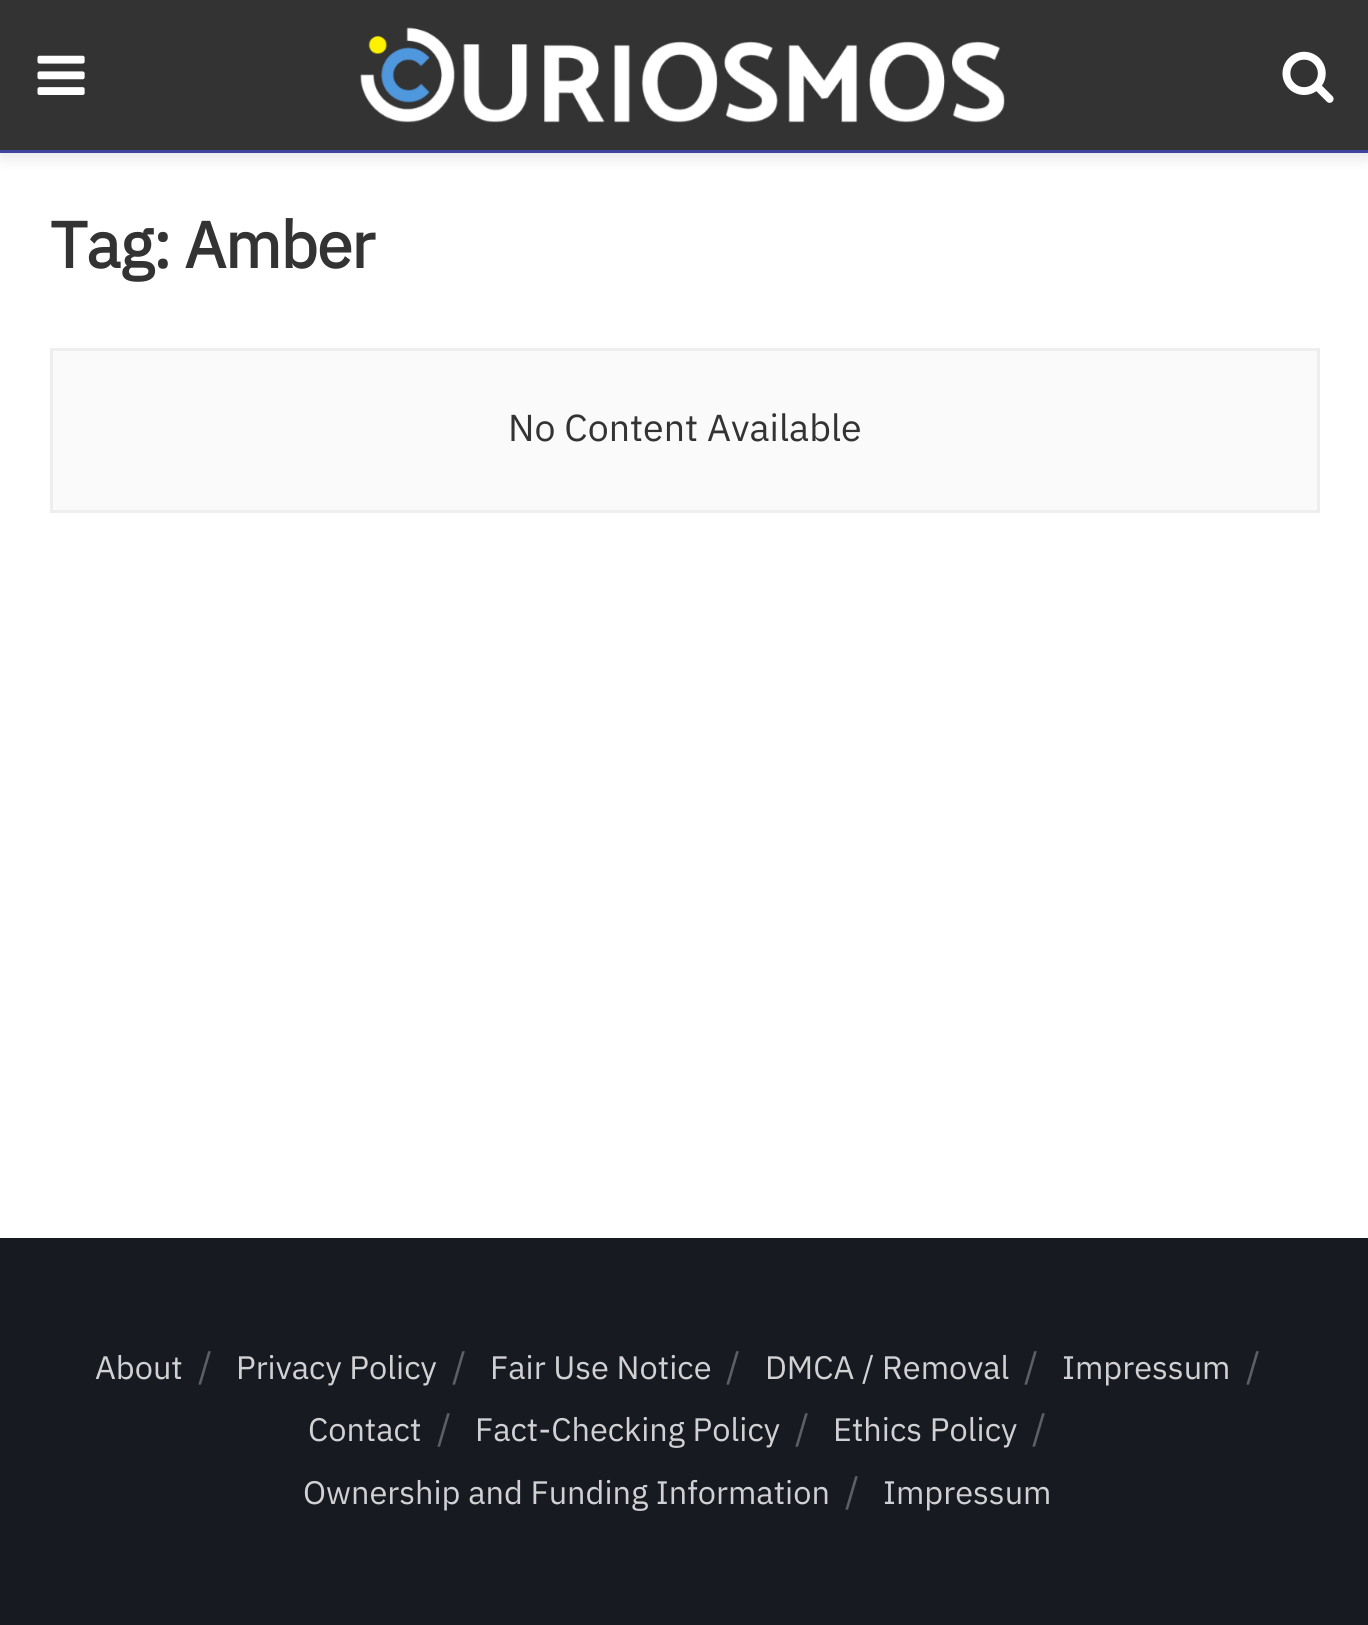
#include <cairo.h>
#include <math.h>
#include <stddef.h>


static void spaced_text(cairo_t *cr, double x, double y, const char *s, double letter, double word) {
    cairo_move_to(cr, x, y);
    while (*s) {
        char ch[5] = {0};
        int n = 0;
        do ch[n++] = *s++; while ((*s & 0xC0) == 0x80);
        cairo_show_text(cr, ch);
        cairo_rel_move_to(cr, letter + word * (*ch == ' '), 0);
    }
}

static void round_rect(cairo_t *cr, double x, double y, double w, double h, double r) {
    cairo_new_sub_path(cr);
    cairo_arc(cr, x + w - r, y + h - r, r, 0, M_PI / 2);
    cairo_arc(cr, x + r, y + h - r, r, M_PI / 2, M_PI);
    cairo_arc(cr, x + r, y + r, r, M_PI, 1.5 * M_PI);
    cairo_arc(cr, x + w - r, y + r, r, 1.5 * M_PI, 2 * M_PI);
    cairo_close_path(cr);
}

static void shadow(cairo_t *cr, double x, double y, double w, double h, double r, double blur, double alpha) {
    cairo_push_group_with_content(cr, CAIRO_CONTENT_ALPHA);
    cairo_set_operator(cr, CAIRO_OPERATOR_SOURCE);
    for (int i = 15; i >= -15 && fmin(w, h) + blur * i / 3 > 0; i -= 2) {
        double e = blur * i / 6;
        cairo_set_source_rgba(cr, 0, 0, 0, alpha * erfc((i - 1) / 8.5) / 2);
        round_rect(cr, x - e, y - e, w + 2 * e, h + 2 * e, fmax(0, fmin(r + e + blur * .6, fmin(w, h) / 2 + e)));
        cairo_fill(cr);
    }
    cairo_pattern_t *soft = cairo_pop_group(cr);
    cairo_mask(cr, soft);
    cairo_pattern_destroy(soft);
}

static void picture(cairo_t *cr, const char *path, double x, double y, double w, double h) {
    cairo_surface_t *image = cairo_image_surface_create_from_png(path);
    cairo_save(cr);
    cairo_set_source_surface(cr, image, x, y);
    cairo_rectangle(cr, x, y, w, h);
    cairo_fill(cr);
    cairo_restore(cr);
    cairo_surface_destroy(image);
}

int main(void) {
    cairo_surface_t *surface = cairo_image_surface_create(CAIRO_FORMAT_RGB24, 1368, 1625);
    cairo_t *cr = cairo_create(surface);
    cairo_font_options_t *options = cairo_font_options_create();
    cairo_font_options_set_hint_metrics(options, CAIRO_HINT_METRICS_OFF);
    cairo_font_options_set_hint_style(options, CAIRO_HINT_STYLE_NONE);
    cairo_set_font_options(cr, options);
    cairo_set_miter_limit(cr, 4);
    cairo_set_source_rgb(cr, 1, 1, 1);
    cairo_paint(cr);
    cairo_set_source_rgb(cr, 0, 0, 0);
    shadow(cr, 0, 5, 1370, 153, 0, 7.5, 0.1);
    cairo_set_source_rgb(cr, 0.243, 0.267, 0.627);
    cairo_rectangle(cr, 0, 150, 1368, 3);
    cairo_fill(cr);
    cairo_set_source_rgb(cr, 0.2, 0.2, 0.2);
    cairo_rectangle(cr, 0, 0, 1368, 150);
    cairo_fill(cr);
    picture(cr, "img1.png", 37, 55, 48, 40);
    picture(cr, "img2.png", 360, 27, 645, 96);
    picture(cr, "img3.png", 1282, 51, 52, 52);
    cairo_select_font_face(cr, "IBM Plex Sans", CAIRO_FONT_SLANT_NORMAL, CAIRO_FONT_WEIGHT_BOLD);
    cairo_set_font_size(cr, 65);
    spaced_text(cr, 50, 268, "Tag: Amber", -1.25, 0);
    cairo_set_source_rgb(cr, 0.98, 0.98, 0.98);
    cairo_rectangle(cr, 51.5, 349.5, 1267, 162);
    cairo_fill_preserve(cr);
    cairo_set_source_rgb(cr, 0.933, 0.933, 0.933);
    cairo_set_line_width(cr, 3);
    cairo_stroke(cr);
    cairo_select_font_face(cr, "IBM Plex Sans", CAIRO_FONT_SLANT_NORMAL, CAIRO_FONT_WEIGHT_NORMAL);
    cairo_set_font_size(cr, 37.5);
    cairo_set_source_rgb(cr, 0.2, 0.2, 0.2);
    cairo_move_to(cr, 508, 441);
    cairo_show_text(cr, "No Content Available");
    cairo_set_source_rgb(cr, 0.09, 0.102, 0.129);
    cairo_rectangle(cr, 0, 1238, 1368, 387);
    cairo_fill(cr);
    cairo_set_font_size(cr, 32.5);
    cairo_set_source_rgb(cr, 0.82, 0.82, 0.827);
    cairo_move_to(cr, 95, 1379);
    cairo_show_text(cr, "About");
    cairo_set_font_size(cr, 37.5);
    cairo_set_source_rgb(cr, 0.365, 0.373, 0.392);
    cairo_move_to(cr, 198, 1379);
    cairo_show_text(cr, "/");
    cairo_set_font_size(cr, 32.5);
    cairo_set_source_rgb(cr, 0.82, 0.82, 0.827);
    cairo_move_to(cr, 236, 1379);
    cairo_show_text(cr, "Privacy Policy");
    cairo_set_font_size(cr, 37.5);
    cairo_set_source_rgb(cr, 0.365, 0.373, 0.392);
    cairo_move_to(cr, 452, 1379);
    cairo_show_text(cr, "/");
    cairo_set_font_size(cr, 32.5);
    cairo_set_source_rgb(cr, 0.82, 0.82, 0.827);
    cairo_move_to(cr, 490, 1379);
    cairo_show_text(cr, "Fair Use Notice");
    cairo_set_font_size(cr, 37.5);
    cairo_set_source_rgb(cr, 0.365, 0.373, 0.392);
    cairo_move_to(cr, 726, 1379);
    cairo_show_text(cr, "/");
    cairo_set_font_size(cr, 32.5);
    cairo_set_source_rgb(cr, 0.82, 0.82, 0.827);
    cairo_move_to(cr, 765, 1379);
    cairo_show_text(cr, "DMCA / Removal");
    cairo_set_font_size(cr, 37.5);
    cairo_set_source_rgb(cr, 0.365, 0.373, 0.392);
    cairo_move_to(cr, 1024, 1379);
    cairo_show_text(cr, "/");
    cairo_set_font_size(cr, 32.5);
    cairo_set_source_rgb(cr, 0.82, 0.82, 0.827);
    cairo_move_to(cr, 1062, 1379);
    cairo_show_text(cr, "Impressum");
    cairo_set_font_size(cr, 37.5);
    cairo_set_source_rgb(cr, 0.365, 0.373, 0.392);
    cairo_move_to(cr, 1246, 1379);
    cairo_show_text(cr, "/");
    cairo_set_font_size(cr, 32.5);
    cairo_set_source_rgb(cr, 0.82, 0.82, 0.827);
    cairo_move_to(cr, 308, 1441);
    cairo_show_text(cr, "Contact");
    cairo_set_font_size(cr, 37.5);
    cairo_set_source_rgb(cr, 0.365, 0.373, 0.392);
    cairo_move_to(cr, 437, 1441);
    cairo_show_text(cr, "/");
    cairo_set_font_size(cr, 32.5);
    cairo_set_source_rgb(cr, 0.82, 0.82, 0.827);
    cairo_move_to(cr, 475, 1441);
    cairo_show_text(cr, "Fact-Checking Policy");
    cairo_set_font_size(cr, 37.5);
    cairo_set_source_rgb(cr, 0.365, 0.373, 0.392);
    cairo_move_to(cr, 795, 1441);
    cairo_show_text(cr, "/");
    cairo_set_font_size(cr, 32.5);
    cairo_set_source_rgb(cr, 0.82, 0.82, 0.827);
    cairo_move_to(cr, 833, 1441);
    cairo_show_text(cr, "Ethics Policy");
    cairo_set_font_size(cr, 37.5);
    cairo_set_source_rgb(cr, 0.365, 0.373, 0.392);
    cairo_move_to(cr, 1032, 1441);
    cairo_show_text(cr, "/");
    cairo_set_font_size(cr, 32.5);
    cairo_set_source_rgb(cr, 0.82, 0.82, 0.827);
    cairo_move_to(cr, 303, 1504);
    cairo_show_text(cr, "Ownership and Funding Information");
    cairo_set_font_size(cr, 37.5);
    cairo_set_source_rgb(cr, 0.365, 0.373, 0.392);
    cairo_move_to(cr, 845, 1504);
    cairo_show_text(cr, "/");
    cairo_set_font_size(cr, 32.5);
    cairo_set_source_rgb(cr, 0.82, 0.82, 0.827);
    cairo_move_to(cr, 883, 1504);
    cairo_show_text(cr, "Impressum");
    cairo_surface_write_to_png(surface, "page.png");
    cairo_font_options_destroy(options);
    cairo_destroy(cr);
    cairo_surface_destroy(surface);
    return 0;
}
